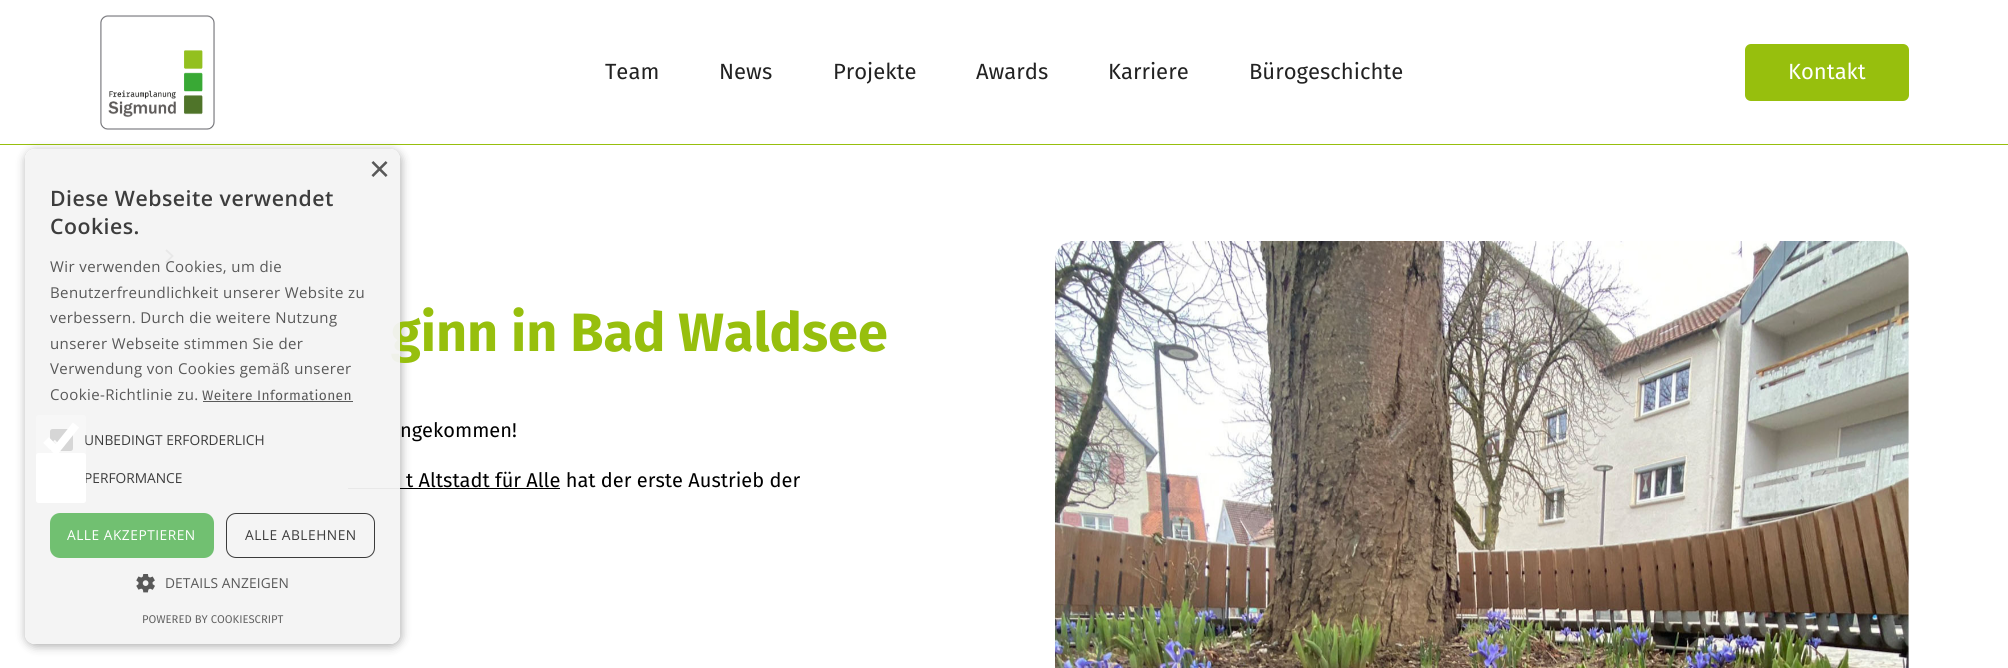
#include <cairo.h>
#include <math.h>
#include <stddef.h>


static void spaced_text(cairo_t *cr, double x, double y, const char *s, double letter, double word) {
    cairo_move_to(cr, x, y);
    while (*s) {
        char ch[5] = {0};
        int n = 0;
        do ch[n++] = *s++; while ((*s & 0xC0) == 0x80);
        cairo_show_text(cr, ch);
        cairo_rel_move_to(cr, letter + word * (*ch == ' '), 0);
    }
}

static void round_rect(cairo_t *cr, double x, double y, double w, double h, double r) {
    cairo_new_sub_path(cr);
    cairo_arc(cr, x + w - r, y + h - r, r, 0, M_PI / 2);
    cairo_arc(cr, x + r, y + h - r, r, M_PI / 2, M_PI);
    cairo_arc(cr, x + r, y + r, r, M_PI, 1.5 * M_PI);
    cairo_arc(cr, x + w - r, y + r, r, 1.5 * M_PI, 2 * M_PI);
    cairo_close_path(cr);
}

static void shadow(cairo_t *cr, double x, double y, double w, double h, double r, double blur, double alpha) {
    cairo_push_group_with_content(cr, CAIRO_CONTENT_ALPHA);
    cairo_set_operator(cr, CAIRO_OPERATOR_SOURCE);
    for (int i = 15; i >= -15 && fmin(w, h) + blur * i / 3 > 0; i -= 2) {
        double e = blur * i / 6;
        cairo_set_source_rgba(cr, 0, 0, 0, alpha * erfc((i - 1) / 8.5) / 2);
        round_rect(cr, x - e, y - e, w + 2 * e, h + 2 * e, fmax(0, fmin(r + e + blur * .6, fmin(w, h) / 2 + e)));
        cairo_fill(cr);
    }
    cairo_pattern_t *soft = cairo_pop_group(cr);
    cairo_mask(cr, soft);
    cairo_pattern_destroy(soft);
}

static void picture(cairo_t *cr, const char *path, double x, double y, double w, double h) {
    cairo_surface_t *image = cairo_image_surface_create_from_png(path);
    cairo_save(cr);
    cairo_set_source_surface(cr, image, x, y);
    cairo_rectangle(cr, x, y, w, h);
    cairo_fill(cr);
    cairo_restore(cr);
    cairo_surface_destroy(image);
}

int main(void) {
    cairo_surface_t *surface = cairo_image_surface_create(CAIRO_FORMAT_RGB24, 2008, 668);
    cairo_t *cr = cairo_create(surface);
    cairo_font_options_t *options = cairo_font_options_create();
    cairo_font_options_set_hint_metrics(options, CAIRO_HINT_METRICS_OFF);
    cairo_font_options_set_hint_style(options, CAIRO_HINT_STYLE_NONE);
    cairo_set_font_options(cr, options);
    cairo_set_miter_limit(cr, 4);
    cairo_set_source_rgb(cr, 1, 1, 1);
    cairo_paint(cr);
    cairo_set_source_rgb(cr, 0.592, 0.749, 0.051);
    cairo_rectangle(cr, 0, 144, 2008, 1);
    cairo_fill(cr);
    cairo_new_path(cr);
    cairo_move_to(cr, 166, 250);
    cairo_line_to(cr, 172.5, 256);
    cairo_line_to(cr, 166, 262.5);
    cairo_set_source_rgb(cr, 0, 0, 0);
    cairo_set_line_width(cr, 1.9);
    cairo_stroke(cr);
    cairo_rectangle(cr, 348, 488, 212, 1);
    cairo_fill(cr);
    cairo_save(cr);
    cairo_set_fill_rule(cr, CAIRO_FILL_RULE_EVEN_ODD);
    cairo_new_path(cr);
    cairo_move_to(cr, 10, 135);
    cairo_line_to(cr, 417, 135);
    cairo_line_to(cr, 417, 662);
    cairo_line_to(cr, 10, 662);
    cairo_close_path(cr);
    cairo_move_to(cr, 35, 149);
    cairo_line_to(cr, 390, 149);
    cairo_curve_to(cr, 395.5, 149, 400, 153.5, 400, 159);
    cairo_line_to(cr, 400, 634);
    cairo_curve_to(cr, 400, 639.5, 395.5, 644, 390, 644);
    cairo_line_to(cr, 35, 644);
    cairo_curve_to(cr, 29.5, 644, 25, 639.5, 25, 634);
    cairo_line_to(cr, 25, 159);
    cairo_curve_to(cr, 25, 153.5, 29.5, 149, 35, 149);
    cairo_close_path(cr);
    cairo_clip(cr);
    cairo_set_source_rgb(cr, 0, 0, 0);
    shadow(cr, 26, 151, 375, 495, 10, 5, 0.33);
    cairo_restore(cr);
    cairo_select_font_face(cr, "Fira Sans", CAIRO_FONT_SLANT_NORMAL, CAIRO_FONT_WEIGHT_BOLD);
    cairo_set_font_size(cr, 54);
    cairo_set_source_rgb(cr, 0.592, 0.749, 0.051);
    cairo_move_to(cr, 391, 351);
    cairo_show_text(cr, "ginn in Bad Waldsee");
    cairo_set_source_rgba(cr, 0.957, 0.957, 0.957, 0.95);
    round_rect(cr, 25, 149, 375, 495, 10);
    cairo_fill(cr);
    cairo_select_font_face(cr, "Liberation Sans", CAIRO_FONT_SLANT_NORMAL, CAIRO_FONT_WEIGHT_NORMAL);
    cairo_set_font_size(cr, 36);
    cairo_set_source_rgb(cr, 0.345, 0.345, 0.345);
    cairo_move_to(cr, 369, 181);
    cairo_show_text(cr, "×");
    cairo_select_font_face(cr, "Open Sans SemiBold", CAIRO_FONT_SLANT_NORMAL, CAIRO_FONT_WEIGHT_NORMAL);
    cairo_set_font_size(cr, 21.25);
    cairo_set_source_rgb(cr, 0.239, 0.239, 0.239);
    spaced_text(cr, 50, 206, "Diese Webseite verwendet", 0.5, 0);
    spaced_text(cr, 50, 234, "Cookies.", 0.5, 0);
    cairo_select_font_face(cr, "Open Sans", CAIRO_FONT_SLANT_NORMAL, CAIRO_FONT_WEIGHT_NORMAL);
    cairo_set_font_size(cr, 15);
    cairo_set_source_rgb(cr, 0.345, 0.345, 0.345);
    spaced_text(cr, 50, 272, "Wir verwenden Cookies, um die", 0.4, 0);
    spaced_text(cr, 50, 298, "Benutzerfreundlichkeit unserer Website zu", 0.4, 0);
    spaced_text(cr, 50, 323, "verbessern. Durch die weitere Nutzung", 0.4, 0);
    spaced_text(cr, 50, 349, "unserer Webseite stimmen Sie der", 0.4, 0);
    spaced_text(cr, 50, 374, "Verwendung von Cookies gemäß unserer", 0.4, 0);
    spaced_text(cr, 50, 400, "Cookie-Richtlinie zu.", 0.4, 0);
    cairo_select_font_face(cr, "Fira Sans", CAIRO_FONT_SLANT_NORMAL, CAIRO_FONT_WEIGHT_NORMAL);
    cairo_set_font_size(cr, 13.75);
    spaced_text(cr, 202, 400, "Weitere Informationen", 0.4, 0);
    cairo_set_source_rgb(cr, 0.353, 0.353, 0.353);
    cairo_rectangle(cr, 203, 401, 150, 1);
    cairo_fill(cr);
    cairo_set_source_rgb(cr, 0.773, 0.773, 0.773);
    round_rect(cr, 50, 429, 23, 22, 2.5);
    cairo_fill(cr);
    cairo_new_path(cr);
    cairo_move_to(cr, 54, 440.5);
    cairo_line_to(cr, 58.5, 445.5);
    cairo_line_to(cr, 69, 434.5);
    cairo_set_source_rgb(cr, 0.961, 0.961, 0.961);
    cairo_set_line_width(cr, 2.3);
    cairo_stroke(cr);
    cairo_select_font_face(cr, "Open Sans", CAIRO_FONT_SLANT_NORMAL, CAIRO_FONT_WEIGHT_NORMAL);
    cairo_set_source_rgb(cr, 0.239, 0.239, 0.239);
    cairo_move_to(cr, 84, 445);
    cairo_show_text(cr, "UNBEDINGT ERFORDERLICH");
    cairo_set_source_rgba(cr, 1, 1, 1, 0.3);
    round_rect(cr, 36, 415, 50, 50, 2.5);
    cairo_fill(cr);
    cairo_new_path(cr);
    cairo_move_to(cr, 46, 440);
    cairo_line_to(cr, 56, 450);
    cairo_line_to(cr, 76, 425);
    cairo_set_source_rgb(cr, 1, 1, 1);
    cairo_set_line_width(cr, 8);
    cairo_stroke(cr);
    cairo_set_source_rgb(cr, 0.239, 0.239, 0.239);
    cairo_move_to(cr, 84, 483);
    cairo_show_text(cr, "PERFORMANCE");
    cairo_set_source_rgb(cr, 1, 1, 1);
    round_rect(cr, 36, 453, 50, 50, 2.5);
    cairo_fill(cr);
    cairo_set_source_rgba(cr, 0.42, 0.745, 0.42, 0.95);
    round_rect(cr, 50, 513, 164, 45, 10);
    cairo_fill(cr);
    cairo_set_source_rgb(cr, 1, 1, 1);
    spaced_text(cr, 67, 540, "ALLE AKZEPTIEREN", 0.5, 0);
    round_rect(cr, 226.5, 513.5, 148, 44, 9.5);
    cairo_set_source_rgba(cr, 0.2, 0.2, 0.2, 0.95);
    cairo_set_line_width(cr, 1);
    cairo_stroke(cr);
    cairo_set_source_rgb(cr, 0.239, 0.239, 0.239);
    spaced_text(cr, 245, 540, "ALLE ABLEHNEN", 0.5, 0);
    picture(cr, "img1.png", 136, 574, 19, 19);
    cairo_set_source_rgb(cr, 0.345, 0.345, 0.345);
    spaced_text(cr, 165, 588, "DETAILS ANZEIGEN", 0.1, 0);
    cairo_select_font_face(cr, "Fira Sans", CAIRO_FONT_SLANT_NORMAL, CAIRO_FONT_WEIGHT_NORMAL);
    cairo_set_font_size(cr, 11.25);
    cairo_set_source_rgb(cr, 0.392, 0.392, 0.392);
    cairo_move_to(cr, 142, 623);
    cairo_show_text(cr, "POWERED BY COOKIESCRIPT");
    picture(cr, "img2.png", 100, 15, 115, 115);
    cairo_set_font_size(cr, 22);
    cairo_set_source_rgb(cr, 0.133, 0.133, 0.133);
    cairo_move_to(cr, 605, 79);
    cairo_show_text(cr, "Team");
    cairo_move_to(cr, 719, 79);
    cairo_show_text(cr, "News");
    cairo_move_to(cr, 833, 79);
    cairo_show_text(cr, "Projekte");
    cairo_move_to(cr, 976, 79);
    cairo_show_text(cr, "Awards");
    cairo_move_to(cr, 1108, 79);
    cairo_show_text(cr, "Karriere");
    cairo_move_to(cr, 1249, 79);
    cairo_show_text(cr, "Bürogeschichte");
    cairo_set_source_rgb(cr, 0.592, 0.749, 0.051);
    round_rect(cr, 1746.5, 45.5, 161, 54, 4.5);
    cairo_fill_preserve(cr);
    cairo_set_line_width(cr, 3);
    cairo_stroke(cr);
    cairo_set_source_rgb(cr, 1, 1, 1);
    cairo_move_to(cr, 1788, 79);
    cairo_show_text(cr, "Kontakt");
    cairo_set_font_size(cr, 20);
    cairo_set_source_rgb(cr, 0, 0, 0);
    cairo_move_to(cr, 400, 437);
    cairo_show_text(cr, "ngekommen!");
    cairo_move_to(cr, 406, 487);
    cairo_show_text(cr, "t Altstadt für Alle hat der erste Austrieb der");
    picture(cr, "img3.png", 1055, 241, 854, 427);
    cairo_surface_write_to_png(surface, "page.png");
    cairo_font_options_destroy(options);
    cairo_destroy(cr);
    cairo_surface_destroy(surface);
    return 0;
}
